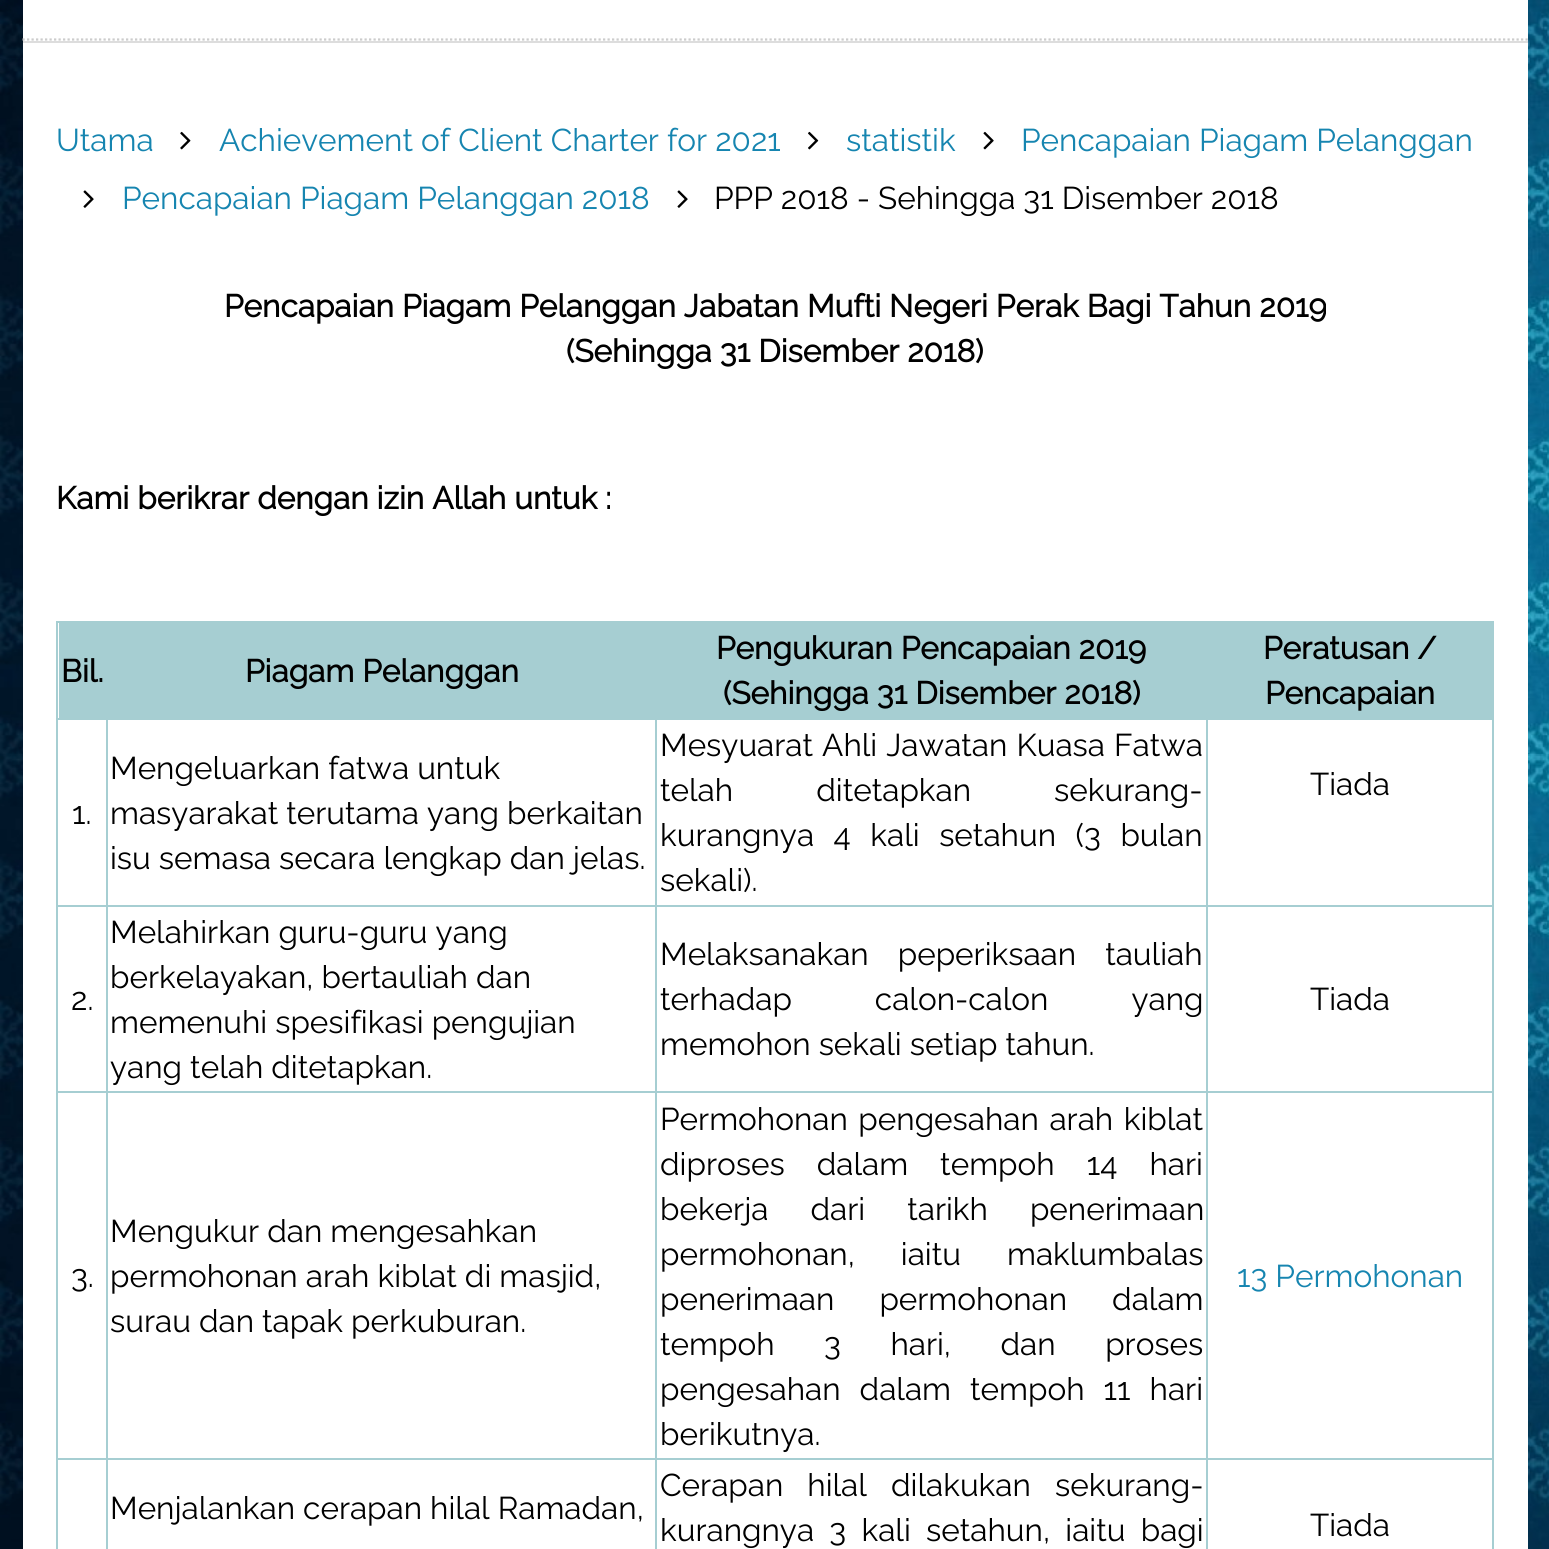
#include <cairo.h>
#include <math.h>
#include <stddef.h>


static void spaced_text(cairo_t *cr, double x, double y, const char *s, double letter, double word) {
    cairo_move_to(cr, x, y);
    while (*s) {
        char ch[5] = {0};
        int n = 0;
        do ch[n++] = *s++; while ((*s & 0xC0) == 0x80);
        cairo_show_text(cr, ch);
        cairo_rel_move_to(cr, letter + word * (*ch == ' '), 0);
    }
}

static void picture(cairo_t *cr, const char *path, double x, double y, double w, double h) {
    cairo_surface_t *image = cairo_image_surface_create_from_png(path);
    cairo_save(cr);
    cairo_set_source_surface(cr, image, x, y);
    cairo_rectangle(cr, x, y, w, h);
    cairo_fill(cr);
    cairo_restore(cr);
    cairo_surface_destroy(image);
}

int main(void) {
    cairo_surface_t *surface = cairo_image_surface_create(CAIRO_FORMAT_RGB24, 1549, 1549);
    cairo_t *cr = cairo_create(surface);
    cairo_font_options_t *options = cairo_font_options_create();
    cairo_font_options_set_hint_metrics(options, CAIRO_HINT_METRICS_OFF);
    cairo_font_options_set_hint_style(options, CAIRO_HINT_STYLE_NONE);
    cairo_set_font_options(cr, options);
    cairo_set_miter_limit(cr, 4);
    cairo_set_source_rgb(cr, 1, 1, 1);
    cairo_paint(cr);
    picture(cr, "img1.png", 0, 0, 1549, 1549);
    cairo_set_source_rgb(cr, 1, 1, 1);
    cairo_rectangle(cr, 23, 0, 1505, 41);
    cairo_fill(cr);
    cairo_new_path(cr);
    cairo_move_to(cr, 22.5, 39.5);
    cairo_line_to(cr, 1528, 39.5);
    cairo_set_source_rgb(cr, 0.8, 0.8, 0.8);
    cairo_set_line_width(cr, 2.2);
    cairo_set_dash(cr, (double[]){2.25, 2.25}, 2, 0);
    cairo_stroke(cr);
    cairo_set_source_rgb(cr, 1, 1, 1);
    cairo_rectangle(cr, 23, 43, 1505, 1506);
    cairo_fill(cr);
    cairo_set_source_rgb(cr, 0.867, 0.867, 0.867);
    cairo_rectangle(cr, 23, 41, 1505, 2);
    cairo_fill(cr);
    cairo_select_font_face(cr, "Raleway Thin", CAIRO_FONT_SLANT_NORMAL, CAIRO_FONT_WEIGHT_NORMAL);
    cairo_set_font_size(cr, 31.5);
    cairo_set_source_rgb(cr, 0.086, 0.522, 0.69);
    cairo_move_to(cr, 56, 151);
    cairo_show_text(cr, "Utama");
    picture(cr, "img2.png", 180, 131, 11, 19);
    cairo_move_to(cr, 219, 151);
    cairo_show_text(cr, "Achievement of Client Charter for 2021");
    picture(cr, "img3.png", 808, 131, 11, 19);
    cairo_move_to(cr, 846, 151);
    cairo_show_text(cr, "statistik");
    picture(cr, "img4.png", 983, 131, 11, 19);
    cairo_move_to(cr, 1021, 151);
    cairo_show_text(cr, "Pencapaian Piagam Pelanggan");
    picture(cr, "img5.png", 83, 190, 11, 18);
    cairo_move_to(cr, 122, 209);
    cairo_show_text(cr, "Pencapaian Piagam Pelanggan 2018");
    picture(cr, "img5.png", 677, 190, 11, 18);
    cairo_set_source_rgb(cr, 0, 0, 0);
    cairo_move_to(cr, 714, 209);
    cairo_show_text(cr, "PPP 2018 - Sehingga 31 Disember 2018");
    cairo_select_font_face(cr, "Raleway", CAIRO_FONT_SLANT_NORMAL, CAIRO_FONT_WEIGHT_BOLD);
    cairo_move_to(cr, 224, 317);
    cairo_show_text(cr, "Pencapaian Piagam Pelanggan Jabatan Mufti Negeri Perak Bagi Tahun 2019");
    cairo_move_to(cr, 566, 362);
    cairo_show_text(cr, "(Sehingga 31 Disember 2018)");
    cairo_move_to(cr, 56, 509);
    cairo_show_text(cr, "Kami berikrar dengan izin Allah untuk :");
    cairo_set_source_rgb(cr, 0.651, 0.808, 0.824);
    cairo_rectangle(cr, 59, 623, 1435, 97);
    cairo_fill(cr);
    cairo_rectangle(cr, 56, 621, 1438, 2);
    cairo_fill(cr);
    cairo_rectangle(cr, 56, 718, 3, 2);
    cairo_fill(cr);
    cairo_rectangle(cr, 1206, 905, 288, 2);
    cairo_fill(cr);
    cairo_rectangle(cr, 1206, 1091, 288, 2);
    cairo_fill(cr);
    cairo_rectangle(cr, 1206, 1458, 288, 2);
    cairo_fill(cr);
    cairo_rectangle(cr, 1206, 1458, 2, 91);
    cairo_fill(cr);
    cairo_rectangle(cr, 655, 1458, 553, 2);
    cairo_fill(cr);
    cairo_rectangle(cr, 1206, 1091, 2, 369);
    cairo_fill(cr);
    cairo_rectangle(cr, 655, 1091, 553, 2);
    cairo_fill(cr);
    cairo_rectangle(cr, 1206, 905, 2, 189);
    cairo_fill(cr);
    cairo_rectangle(cr, 655, 905, 553, 2);
    cairo_fill(cr);
    cairo_rectangle(cr, 655, 1458, 2, 91);
    cairo_fill(cr);
    cairo_rectangle(cr, 106, 1458, 551, 2);
    cairo_fill(cr);
    cairo_rectangle(cr, 655, 1091, 2, 369);
    cairo_fill(cr);
    cairo_rectangle(cr, 106, 1091, 551, 2);
    cairo_fill(cr);
    cairo_rectangle(cr, 655, 905, 2, 189);
    cairo_fill(cr);
    cairo_rectangle(cr, 106, 905, 551, 2);
    cairo_fill(cr);
    cairo_rectangle(cr, 106, 1458, 2, 91);
    cairo_fill(cr);
    cairo_rectangle(cr, 56, 1458, 52, 2);
    cairo_fill(cr);
    cairo_rectangle(cr, 106, 1091, 2, 369);
    cairo_fill(cr);
    cairo_rectangle(cr, 56, 1091, 52, 2);
    cairo_fill(cr);
    cairo_rectangle(cr, 106, 905, 2, 189);
    cairo_fill(cr);
    cairo_rectangle(cr, 56, 905, 52, 2);
    cairo_fill(cr);
    cairo_rectangle(cr, 56, 1458, 2, 91);
    cairo_fill(cr);
    cairo_rectangle(cr, 56, 1091, 2, 369);
    cairo_fill(cr);
    cairo_rectangle(cr, 56, 905, 2, 189);
    cairo_fill(cr);
    cairo_rectangle(cr, 56, 718, 2, 189);
    cairo_fill(cr);
    cairo_rectangle(cr, 56, 621, 2, 99);
    cairo_fill(cr);
    cairo_set_source_rgb(cr, 0, 0, 0);
    cairo_move_to(cr, 61, 682);
    cairo_show_text(cr, "Bil.");
    cairo_move_to(cr, 245, 682);
    cairo_show_text(cr, "Piagam Pelanggan");
    cairo_move_to(cr, 716, 659);
    cairo_show_text(cr, "Pengukuran Pencapaian 2019");
    cairo_move_to(cr, 723, 704);
    cairo_show_text(cr, "(Sehingga 31 Disember 2018)");
    cairo_move_to(cr, 1263, 659);
    cairo_show_text(cr, "Peratusan /");
    cairo_move_to(cr, 1265, 704);
    cairo_show_text(cr, "Pencapaian");
    cairo_set_source_rgb(cr, 0.651, 0.808, 0.824);
    cairo_rectangle(cr, 106, 718, 2, 189);
    cairo_fill(cr);
    cairo_select_font_face(cr, "Raleway Thin", CAIRO_FONT_SLANT_NORMAL, CAIRO_FONT_WEIGHT_NORMAL);
    cairo_set_source_rgb(cr, 0, 0, 0);
    cairo_move_to(cr, 110, 779);
    cairo_show_text(cr, "Mengeluarkan fatwa untuk");
    cairo_move_to(cr, 110, 824);
    cairo_show_text(cr, "masyarakat terutama yang berkaitan");
    cairo_move_to(cr, 110, 869);
    cairo_show_text(cr, "isu semasa secara lengkap dan jelas.");
    cairo_set_source_rgb(cr, 0.651, 0.808, 0.824);
    cairo_rectangle(cr, 655, 718, 2, 189);
    cairo_fill(cr);
    cairo_set_source_rgb(cr, 0, 0, 0);
    spaced_text(cr, 660, 756, "Mesyuarat Ahli Jawatan Kuasa Fatwa", 0, 1);
    spaced_text(cr, 660, 801, "telah ditetapkan sekurang-", 0, 75);
    spaced_text(cr, 660, 846, "kurangnya 4 kali setahun (3 bulan", 0, 11.5);
    cairo_move_to(cr, 660, 891);
    cairo_show_text(cr, "sekali).");
    cairo_set_source_rgb(cr, 0.651, 0.808, 0.824);
    cairo_rectangle(cr, 1206, 718, 2, 189);
    cairo_fill(cr);
    cairo_set_source_rgb(cr, 0, 0, 0);
    cairo_move_to(cr, 1310, 795);
    cairo_show_text(cr, "Tiada");
    cairo_move_to(cr, 72, 824);
    cairo_show_text(cr, "1.");
    cairo_move_to(cr, 71, 1010);
    cairo_show_text(cr, "2.");
    cairo_move_to(cr, 110, 943);
    cairo_show_text(cr, "Melahirkan guru-guru yang");
    cairo_move_to(cr, 110, 988);
    cairo_show_text(cr, "berkelayakan, bertauliah dan");
    cairo_move_to(cr, 110, 1033);
    cairo_show_text(cr, "memenuhi spesifikasi pengujian");
    cairo_move_to(cr, 110, 1078);
    cairo_show_text(cr, "yang telah ditetapkan.");
    spaced_text(cr, 660, 965, "Melaksanakan peperiksaan tauliah", 0, 21);
    spaced_text(cr, 660, 1010, "terhadap calon-calon yang", 0, 75);
    cairo_move_to(cr, 660, 1055);
    cairo_show_text(cr, "memohon sekali setiap tahun.");
    cairo_set_source_rgb(cr, 0.651, 0.808, 0.824);
    cairo_rectangle(cr, 1492, 1458, 2, 91);
    cairo_fill(cr);
    cairo_rectangle(cr, 1492, 1091, 2, 369);
    cairo_fill(cr);
    cairo_rectangle(cr, 1492, 718, 2, 376);
    cairo_fill(cr);
    cairo_set_source_rgb(cr, 0, 0, 0);
    cairo_move_to(cr, 1310, 1010);
    cairo_show_text(cr, "Tiada");
    cairo_move_to(cr, 71, 1287);
    cairo_show_text(cr, "3.");
    cairo_move_to(cr, 110, 1242);
    cairo_show_text(cr, "Mengukur dan mengesahkan");
    cairo_move_to(cr, 110, 1287);
    cairo_show_text(cr, "permohonan arah kiblat di masjid,");
    cairo_move_to(cr, 110, 1332);
    cairo_show_text(cr, "surau dan tapak perkuburan.");
    spaced_text(cr, 660, 1130, "Permohonan pengesahan arah kiblat", 0, 2.5);
    spaced_text(cr, 660, 1175, "diproses dalam tempoh 14 hari", 0, 24);
    spaced_text(cr, 660, 1220, "bekerja dari tarikh penerimaan", 0, 34);
    spaced_text(cr, 660, 1265, "permohonan, iaitu maklumbalas", 0, 38);
    spaced_text(cr, 660, 1310, "penerimaan permohonan dalam", 0, 37);
    spaced_text(cr, 660, 1355, "tempoh 3 hari, dan proses", 0, 41.5);
    spaced_text(cr, 660, 1400, "pengesahan dalam tempoh 11 hari", 0, 11);
    cairo_move_to(cr, 660, 1445);
    cairo_show_text(cr, "berikutnya.");
    cairo_set_source_rgb(cr, 0.086, 0.522, 0.69);
    cairo_move_to(cr, 1237, 1287);
    cairo_show_text(cr, "13 Permohonan");
    cairo_set_source_rgb(cr, 0, 0, 0);
    cairo_move_to(cr, 110, 1519);
    cairo_show_text(cr, "Menjalankan cerapan hilal Ramadan,");
    spaced_text(cr, 660, 1496, "Cerapan hilal", 0, 16);
    cairo_move_to(cr, 891, 1496);
    cairo_show_text(cr, "dilakukan");
    cairo_move_to(cr, 1055, 1496);
    cairo_show_text(cr, "sekurang-");
    spaced_text(cr, 660, 1541, "kurangnya 3 kali setahun, iaitu bagi", 0, 7.25);
    cairo_move_to(cr, 1310, 1536);
    cairo_show_text(cr, "Tiada");
    cairo_surface_write_to_png(surface, "page.png");
    cairo_font_options_destroy(options);
    cairo_destroy(cr);
    cairo_surface_destroy(surface);
    return 0;
}
